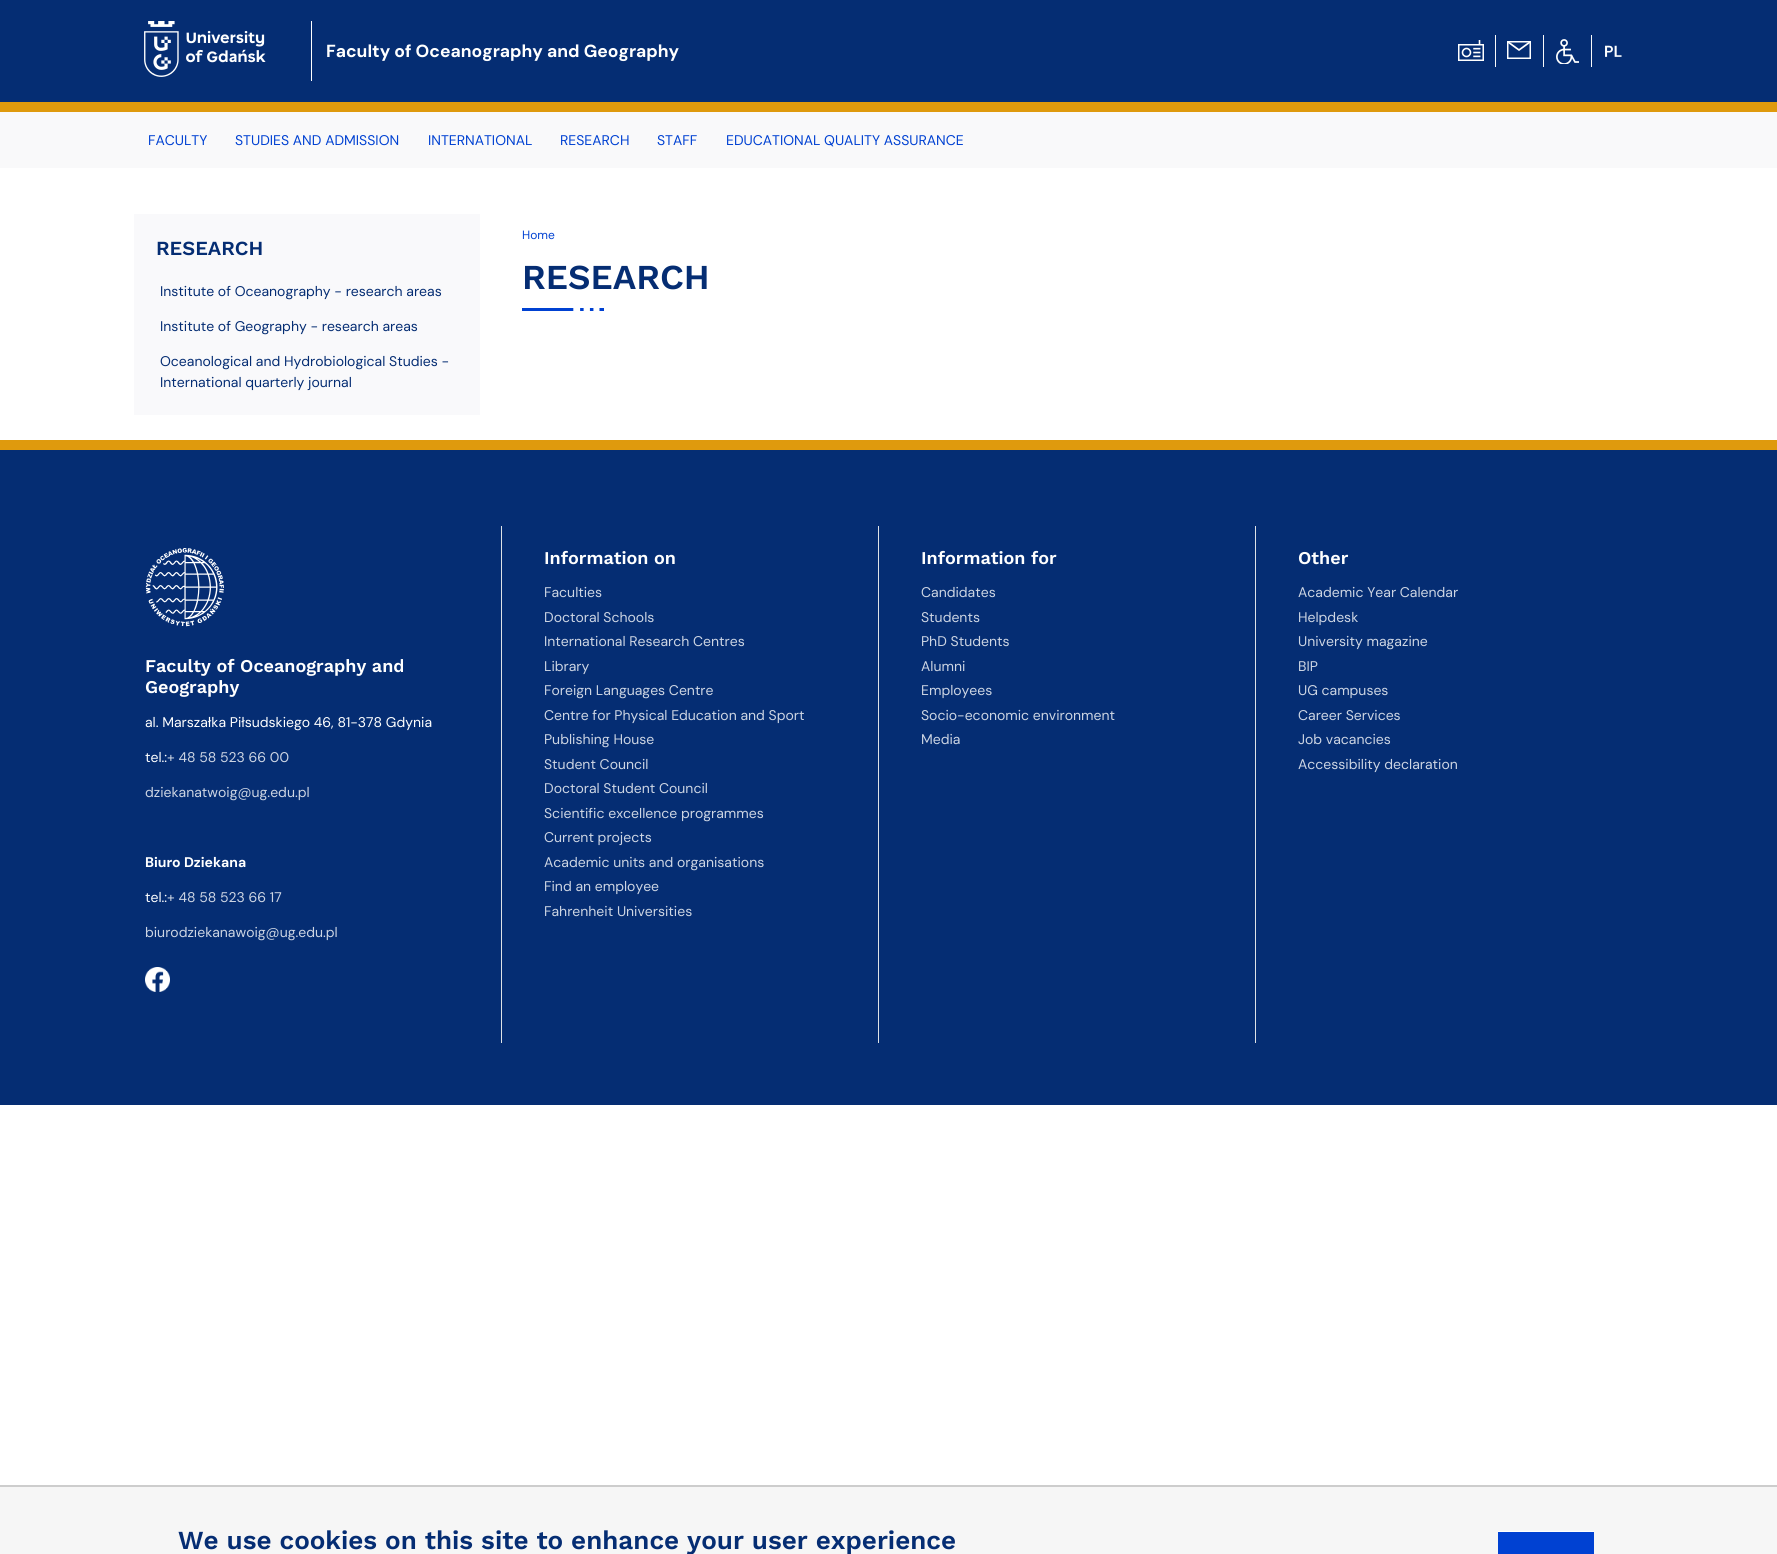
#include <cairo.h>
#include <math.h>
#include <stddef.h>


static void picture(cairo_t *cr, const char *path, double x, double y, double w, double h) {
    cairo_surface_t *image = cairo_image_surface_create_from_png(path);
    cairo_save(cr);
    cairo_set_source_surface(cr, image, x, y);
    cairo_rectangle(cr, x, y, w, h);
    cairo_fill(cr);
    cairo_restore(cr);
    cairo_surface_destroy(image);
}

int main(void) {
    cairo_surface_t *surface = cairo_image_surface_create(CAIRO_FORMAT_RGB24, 1777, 1554);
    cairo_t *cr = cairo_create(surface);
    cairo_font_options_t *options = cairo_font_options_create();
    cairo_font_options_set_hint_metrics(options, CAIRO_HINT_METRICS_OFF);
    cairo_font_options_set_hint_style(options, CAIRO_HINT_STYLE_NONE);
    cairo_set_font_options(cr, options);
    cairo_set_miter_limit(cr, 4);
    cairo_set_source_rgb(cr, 1, 1, 1);
    cairo_paint(cr);
    cairo_set_source_rgb(cr, 0.02, 0.176, 0.451);
    cairo_rectangle(cr, 0, 0, 1777, 102);
    cairo_fill(cr);
    cairo_set_source_rgb(cr, 1, 1, 1);
    cairo_rectangle(cr, 311, 21, 1, 60);
    cairo_fill(cr);
    picture(cr, "img1.png", 144, 21, 122, 56);
    cairo_select_font_face(cr, "DM Sans", CAIRO_FONT_SLANT_NORMAL, CAIRO_FONT_WEIGHT_BOLD);
    cairo_set_font_size(cr, 17.5);
    cairo_move_to(cr, 326, 57);
    cairo_show_text(cr, "Faculty of Oceanography and Geography");
    cairo_set_source_rgb(cr, 0.973, 0.976, 0.98);
    cairo_rectangle(cr, 1495, 35, 1, 32);
    cairo_fill(cr);
    picture(cr, "img2.png", 1458, 40, 26, 21);
    cairo_rectangle(cr, 1543, 35, 1, 32);
    cairo_fill(cr);
    cairo_rectangle(cr, 1507.75, 41.75, 22.5, 16.5);
    cairo_set_source_rgb(cr, 1, 1, 1);
    cairo_set_line_width(cr, 1.5);
    cairo_stroke(cr);
    cairo_new_path(cr);
    cairo_move_to(cr, 1508, 42);
    cairo_line_to(cr, 1519, 50);
    cairo_line_to(cr, 1530, 42);
    cairo_set_line_width(cr, 1.7);
    cairo_stroke(cr);
    cairo_set_source_rgb(cr, 0.973, 0.976, 0.98);
    cairo_rectangle(cr, 1591, 35, 1, 32);
    cairo_fill(cr);
    picture(cr, "img3.png", 1556, 39, 23, 25);
    picture(cr, "img4.png", 1605, 45, 17, 12);
    cairo_rectangle(cr, 0, 112, 1777, 56);
    cairo_fill(cr);
    cairo_set_source_rgb(cr, 0.875, 0.604, 0.051);
    cairo_rectangle(cr, 0, 102, 1777, 10);
    cairo_fill(cr);
    cairo_select_font_face(cr, "DM Sans", CAIRO_FONT_SLANT_NORMAL, CAIRO_FONT_WEIGHT_NORMAL);
    cairo_set_font_size(cr, 14);
    cairo_set_source_rgb(cr, 0, 0.255, 0.824);
    cairo_move_to(cr, 148, 145);
    cairo_show_text(cr, "FACULTY");
    cairo_move_to(cr, 235, 145);
    cairo_show_text(cr, "STUDIES AND ADMISSION");
    cairo_move_to(cr, 428, 145);
    cairo_show_text(cr, "INTERNATIONAL");
    cairo_move_to(cr, 560, 145);
    cairo_show_text(cr, "RESEARCH");
    cairo_move_to(cr, 657, 145);
    cairo_show_text(cr, "STAFF");
    cairo_move_to(cr, 726, 145);
    cairo_show_text(cr, "EDUCATIONAL QUALITY ASSURANCE");
    cairo_set_source_rgb(cr, 0.973, 0.976, 0.984);
    cairo_rectangle(cr, 134, 214, 346, 201);
    cairo_fill(cr);
    cairo_select_font_face(cr, "Work Sans SemiBold", CAIRO_FONT_SLANT_NORMAL, CAIRO_FONT_WEIGHT_NORMAL);
    cairo_set_font_size(cr, 20);
    cairo_set_source_rgb(cr, 0.02, 0.176, 0.451);
    cairo_move_to(cr, 156, 255);
    cairo_show_text(cr, "RESEARCH");
    cairo_select_font_face(cr, "DM Sans", CAIRO_FONT_SLANT_NORMAL, CAIRO_FONT_WEIGHT_NORMAL);
    cairo_set_font_size(cr, 14);
    cairo_move_to(cr, 160, 296);
    cairo_show_text(cr, "Institute of Oceanography - research areas");
    cairo_move_to(cr, 160, 331);
    cairo_show_text(cr, "Institute of Geography - research areas");
    cairo_move_to(cr, 160, 366);
    cairo_show_text(cr, "Oceanological and Hydrobiological Studies -");
    cairo_move_to(cr, 160, 387);
    cairo_show_text(cr, "International quarterly journal");
    cairo_set_font_size(cr, 12);
    cairo_set_source_rgb(cr, 0, 0.255, 0.824);
    cairo_move_to(cr, 522, 239);
    cairo_show_text(cr, "Home");
    cairo_select_font_face(cr, "Work Sans SemiBold", CAIRO_FONT_SLANT_NORMAL, CAIRO_FONT_WEIGHT_NORMAL);
    cairo_set_font_size(cr, 35);
    cairo_set_source_rgb(cr, 0.02, 0.176, 0.451);
    cairo_move_to(cr, 522, 289);
    cairo_show_text(cr, "RESEARCH");
    picture(cr, "img5.png", 522, 308, 82, 3);
    cairo_rectangle(cr, 0, 450, 1777, 655);
    cairo_fill(cr);
    cairo_set_source_rgb(cr, 0.875, 0.604, 0.051);
    cairo_rectangle(cr, 0, 440, 1777, 10);
    cairo_fill(cr);
    picture(cr, "img6.png", 145, 548, 79, 79);
    cairo_set_font_size(cr, 18);
    cairo_set_source_rgb(cr, 1, 1, 1);
    cairo_move_to(cr, 145, 672);
    cairo_show_text(cr, "Faculty of Oceanography and");
    cairo_move_to(cr, 145, 693);
    cairo_show_text(cr, "Geography");
    cairo_select_font_face(cr, "DM Sans", CAIRO_FONT_SLANT_NORMAL, CAIRO_FONT_WEIGHT_NORMAL);
    cairo_set_font_size(cr, 14);
    cairo_move_to(cr, 145, 727);
    cairo_show_text(cr, "al. Marszałka Piłsudskiego 46, 81-378 Gdynia");
    cairo_move_to(cr, 145, 762);
    cairo_show_text(cr, "tel.:");
    cairo_set_source_rgb(cr, 0.804, 0.835, 0.89);
    cairo_move_to(cr, 167, 762);
    cairo_show_text(cr, "+ 48 58 523 66 00");
    cairo_move_to(cr, 145, 797);
    cairo_show_text(cr, "dziekanatwoig@ug.edu.pl");
    cairo_select_font_face(cr, "DM Sans", CAIRO_FONT_SLANT_NORMAL, CAIRO_FONT_WEIGHT_BOLD);
    cairo_set_source_rgb(cr, 1, 1, 1);
    cairo_move_to(cr, 145, 867);
    cairo_show_text(cr, "Biuro Dziekana");
    cairo_select_font_face(cr, "DM Sans", CAIRO_FONT_SLANT_NORMAL, CAIRO_FONT_WEIGHT_NORMAL);
    cairo_move_to(cr, 145, 902);
    cairo_show_text(cr, "tel.:");
    cairo_set_source_rgb(cr, 0.804, 0.835, 0.89);
    cairo_move_to(cr, 167, 902);
    cairo_show_text(cr, "+ 48 58 523 66 17");
    cairo_move_to(cr, 145, 937);
    cairo_show_text(cr, "biurodziekanawoig@ug.edu.pl");
    picture(cr, "img7.png", 145, 967, 25, 25);
    cairo_set_source_rgb(cr, 0.871, 0.886, 0.902);
    cairo_rectangle(cr, 501, 526, 1, 517);
    cairo_fill(cr);
    cairo_select_font_face(cr, "Work Sans SemiBold", CAIRO_FONT_SLANT_NORMAL, CAIRO_FONT_WEIGHT_NORMAL);
    cairo_set_font_size(cr, 18);
    cairo_set_source_rgb(cr, 1, 1, 1);
    cairo_move_to(cr, 544, 564);
    cairo_show_text(cr, "Information on");
    cairo_select_font_face(cr, "DM Sans", CAIRO_FONT_SLANT_NORMAL, CAIRO_FONT_WEIGHT_NORMAL);
    cairo_set_font_size(cr, 14);
    cairo_set_source_rgb(cr, 0.804, 0.835, 0.89);
    cairo_move_to(cr, 544, 597);
    cairo_show_text(cr, "Faculties");
    cairo_move_to(cr, 544, 622);
    cairo_show_text(cr, "Doctoral Schools");
    cairo_move_to(cr, 544, 646);
    cairo_show_text(cr, "International Research Centres");
    cairo_move_to(cr, 544, 671);
    cairo_show_text(cr, "Library");
    cairo_move_to(cr, 544, 695);
    cairo_show_text(cr, "Foreign Languages Centre");
    cairo_move_to(cr, 544, 720);
    cairo_show_text(cr, "Centre for Physical Education and Sport");
    cairo_move_to(cr, 544, 744);
    cairo_show_text(cr, "Publishing House");
    cairo_move_to(cr, 544, 769);
    cairo_show_text(cr, "Student Council");
    cairo_move_to(cr, 544, 793);
    cairo_show_text(cr, "Doctoral Student Council");
    cairo_move_to(cr, 544, 818);
    cairo_show_text(cr, "Scientific excellence programmes");
    cairo_move_to(cr, 544, 842);
    cairo_show_text(cr, "Current projects");
    cairo_move_to(cr, 544, 867);
    cairo_show_text(cr, "Academic units and organisations");
    cairo_move_to(cr, 544, 891);
    cairo_show_text(cr, "Find an employee");
    cairo_move_to(cr, 544, 916);
    cairo_show_text(cr, "Fahrenheit Universities");
    cairo_set_source_rgb(cr, 0.871, 0.886, 0.902);
    cairo_rectangle(cr, 878, 526, 1, 517);
    cairo_fill(cr);
    cairo_select_font_face(cr, "Work Sans SemiBold", CAIRO_FONT_SLANT_NORMAL, CAIRO_FONT_WEIGHT_NORMAL);
    cairo_set_font_size(cr, 18);
    cairo_set_source_rgb(cr, 1, 1, 1);
    cairo_move_to(cr, 921, 564);
    cairo_show_text(cr, "Information for");
    cairo_select_font_face(cr, "DM Sans", CAIRO_FONT_SLANT_NORMAL, CAIRO_FONT_WEIGHT_NORMAL);
    cairo_set_font_size(cr, 14);
    cairo_set_source_rgb(cr, 0.804, 0.835, 0.89);
    cairo_move_to(cr, 921, 597);
    cairo_show_text(cr, "Candidates");
    cairo_move_to(cr, 921, 622);
    cairo_show_text(cr, "Students");
    cairo_move_to(cr, 921, 646);
    cairo_show_text(cr, "PhD Students");
    cairo_move_to(cr, 921, 671);
    cairo_show_text(cr, "Alumni");
    cairo_move_to(cr, 921, 695);
    cairo_show_text(cr, "Employees");
    cairo_move_to(cr, 921, 720);
    cairo_show_text(cr, "Socio-economic environment");
    cairo_move_to(cr, 921, 744);
    cairo_show_text(cr, "Media");
    cairo_set_source_rgb(cr, 0.871, 0.886, 0.902);
    cairo_rectangle(cr, 1255, 526, 1, 517);
    cairo_fill(cr);
    cairo_select_font_face(cr, "Work Sans SemiBold", CAIRO_FONT_SLANT_NORMAL, CAIRO_FONT_WEIGHT_NORMAL);
    cairo_set_font_size(cr, 18);
    cairo_set_source_rgb(cr, 1, 1, 1);
    cairo_move_to(cr, 1298, 564);
    cairo_show_text(cr, "Other");
    cairo_select_font_face(cr, "DM Sans", CAIRO_FONT_SLANT_NORMAL, CAIRO_FONT_WEIGHT_NORMAL);
    cairo_set_font_size(cr, 14);
    cairo_set_source_rgb(cr, 0.804, 0.835, 0.89);
    cairo_move_to(cr, 1298, 597);
    cairo_show_text(cr, "Academic Year Calendar");
    cairo_move_to(cr, 1298, 622);
    cairo_show_text(cr, "Helpdesk");
    cairo_move_to(cr, 1298, 646);
    cairo_show_text(cr, "University magazine");
    cairo_move_to(cr, 1298, 671);
    cairo_show_text(cr, "BIP");
    cairo_move_to(cr, 1298, 695);
    cairo_show_text(cr, "UG campuses");
    cairo_move_to(cr, 1298, 720);
    cairo_show_text(cr, "Career Services");
    cairo_move_to(cr, 1298, 744);
    cairo_show_text(cr, "Job vacancies");
    cairo_move_to(cr, 1298, 769);
    cairo_show_text(cr, "Accessibility declaration");
    cairo_set_source_rgb(cr, 0.961, 0.961, 0.961);
    cairo_rectangle(cr, 0, 1487, 1777, 67);
    cairo_fill(cr);
    cairo_set_source_rgb(cr, 0.804, 0.804, 0.804);
    cairo_rectangle(cr, 0, 1485, 1777, 2);
    cairo_fill(cr);
    cairo_select_font_face(cr, "Work Sans SemiBold", CAIRO_FONT_SLANT_NORMAL, CAIRO_FONT_WEIGHT_NORMAL);
    cairo_set_font_size(cr, 26);
    cairo_set_source_rgb(cr, 0.02, 0.176, 0.451);
    cairo_move_to(cr, 178, 1549);
    cairo_show_text(cr, "We use cookies on this site to enhance your user experience");
    cairo_set_source_rgb(cr, 0, 0.255, 0.824);
    cairo_rectangle(cr, 1498, 1532, 96, 22);
    cairo_fill(cr);
    cairo_set_source_rgb(cr, 1, 1, 1);
    cairo_rectangle(cr, 1498, 1531, 96, 1);
    cairo_fill(cr);
    cairo_surface_write_to_png(surface, "page.png");
    cairo_font_options_destroy(options);
    cairo_destroy(cr);
    cairo_surface_destroy(surface);
    return 0;
}
